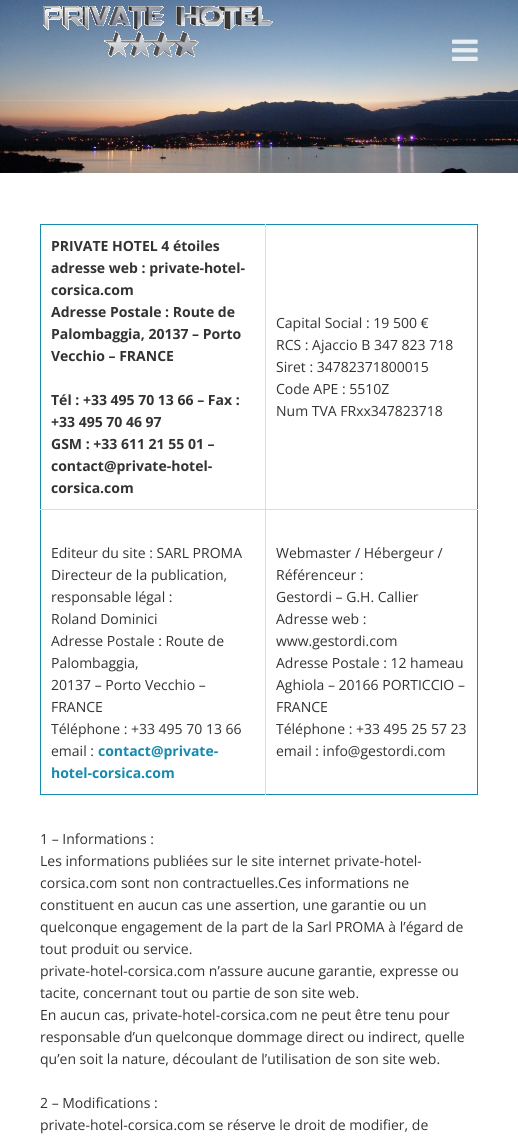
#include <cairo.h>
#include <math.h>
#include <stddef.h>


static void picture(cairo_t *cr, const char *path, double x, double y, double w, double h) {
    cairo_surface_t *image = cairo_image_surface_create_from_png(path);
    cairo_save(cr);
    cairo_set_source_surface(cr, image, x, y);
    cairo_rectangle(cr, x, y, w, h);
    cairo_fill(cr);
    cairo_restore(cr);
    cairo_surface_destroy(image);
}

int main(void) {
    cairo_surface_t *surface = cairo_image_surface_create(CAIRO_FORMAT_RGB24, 518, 1148);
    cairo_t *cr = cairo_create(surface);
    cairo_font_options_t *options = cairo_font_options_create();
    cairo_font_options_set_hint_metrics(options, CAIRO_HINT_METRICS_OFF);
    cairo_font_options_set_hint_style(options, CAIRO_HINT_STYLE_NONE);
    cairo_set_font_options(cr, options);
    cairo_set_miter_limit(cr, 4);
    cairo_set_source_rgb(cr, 1, 1, 1);
    cairo_paint(cr);
    picture(cr, "img1.png", 0, 0, 518, 173);
    cairo_set_source_rgba(cr, 1, 1, 1, 0.1);
    cairo_rectangle(cr, 0, 100, 518, 1);
    cairo_fill(cr);
    picture(cr, "img2.png", 43, 6, 230, 51);
    picture(cr, "img3.png", 452, 39, 26, 22);
    cairo_set_source_rgb(cr, 0.086, 0.541, 0.686);
    cairo_rectangle(cr, 40, 224, 438, 1);
    cairo_fill(cr);
    cairo_rectangle(cr, 477, 224, 1, 571);
    cairo_fill(cr);
    cairo_rectangle(cr, 40, 794, 438, 1);
    cairo_fill(cr);
    cairo_rectangle(cr, 40, 224, 1, 571);
    cairo_fill(cr);
    cairo_select_font_face(cr, "Open Sans", CAIRO_FONT_SLANT_NORMAL, CAIRO_FONT_WEIGHT_BOLD);
    cairo_set_font_size(cr, 14);
    cairo_set_source_rgb(cr, 0.2, 0.2, 0.2);
    cairo_move_to(cr, 51, 251);
    cairo_show_text(cr, "PRIVATE HOTEL 4 étoiles");
    cairo_move_to(cr, 51, 273);
    cairo_show_text(cr, "adresse web : private-hotel-");
    cairo_move_to(cr, 51, 295);
    cairo_show_text(cr, "corsica.com");
    cairo_move_to(cr, 51, 317);
    cairo_show_text(cr, "Adresse Postale : Route de");
    cairo_move_to(cr, 51, 339);
    cairo_show_text(cr, "Palombaggia, 20137 – Porto");
    cairo_move_to(cr, 51, 361);
    cairo_show_text(cr, "Vecchio – FRANCE");
    cairo_move_to(cr, 51, 405);
    cairo_show_text(cr, "Tél : +33 495 70 13 66 – Fax :");
    cairo_move_to(cr, 51, 427);
    cairo_show_text(cr, "+33 495 70 46 97");
    cairo_move_to(cr, 51, 449);
    cairo_show_text(cr, "GSM : +33 611 21 55 01 –");
    cairo_move_to(cr, 51, 471);
    cairo_show_text(cr, "contact@private-hotel-");
    cairo_move_to(cr, 51, 493);
    cairo_show_text(cr, "corsica.com");
    cairo_set_source_rgb(cr, 0.867, 0.867, 0.867);
    cairo_rectangle(cr, 265, 509, 213, 1);
    cairo_fill(cr);
    cairo_rectangle(cr, 265, 509, 1, 286);
    cairo_fill(cr);
    cairo_rectangle(cr, 40, 509, 226, 1);
    cairo_fill(cr);
    cairo_rectangle(cr, 265, 224, 1, 286);
    cairo_fill(cr);
    cairo_select_font_face(cr, "Open Sans", CAIRO_FONT_SLANT_NORMAL, CAIRO_FONT_WEIGHT_NORMAL);
    cairo_set_source_rgb(cr, 0.2, 0.2, 0.2);
    cairo_move_to(cr, 276, 328);
    cairo_show_text(cr, "Capital Social : 19 500 €");
    cairo_move_to(cr, 276, 350);
    cairo_show_text(cr, "RCS : Ajaccio B 347 823 718");
    cairo_move_to(cr, 276, 372);
    cairo_show_text(cr, "Siret : 34782371800015");
    cairo_move_to(cr, 276, 394);
    cairo_show_text(cr, "Code APE : 5510Z");
    cairo_move_to(cr, 276, 416);
    cairo_show_text(cr, "Num TVA FRxx347823718");
    cairo_move_to(cr, 51, 558);
    cairo_show_text(cr, "Editeur du site : SARL PROMA");
    cairo_move_to(cr, 51, 580);
    cairo_show_text(cr, "Directeur de la publication,");
    cairo_move_to(cr, 51, 602);
    cairo_show_text(cr, "responsable légal :");
    cairo_move_to(cr, 51, 624);
    cairo_show_text(cr, "Roland Dominici");
    cairo_move_to(cr, 51, 646);
    cairo_show_text(cr, "Adresse Postale : Route de");
    cairo_move_to(cr, 51, 668);
    cairo_show_text(cr, "Palombaggia,");
    cairo_move_to(cr, 51, 690);
    cairo_show_text(cr, "20137 – Porto Vecchio –");
    cairo_move_to(cr, 51, 712);
    cairo_show_text(cr, "FRANCE");
    cairo_move_to(cr, 51, 734);
    cairo_show_text(cr, "Téléphone : +33 495 70 13 66");
    cairo_move_to(cr, 51, 756);
    cairo_show_text(cr, "email :");
    cairo_select_font_face(cr, "Open Sans", CAIRO_FONT_SLANT_NORMAL, CAIRO_FONT_WEIGHT_BOLD);
    cairo_set_source_rgb(cr, 0.086, 0.541, 0.686);
    cairo_move_to(cr, 98, 756);
    cairo_show_text(cr, "contact@private-");
    cairo_move_to(cr, 51, 778);
    cairo_show_text(cr, "hotel-corsica.com");
    cairo_select_font_face(cr, "Open Sans", CAIRO_FONT_SLANT_NORMAL, CAIRO_FONT_WEIGHT_NORMAL);
    cairo_set_source_rgb(cr, 0.2, 0.2, 0.2);
    cairo_move_to(cr, 276, 558);
    cairo_show_text(cr, "Webmaster / Hébergeur /");
    cairo_move_to(cr, 276, 580);
    cairo_show_text(cr, "Référenceur :");
    cairo_move_to(cr, 276, 602);
    cairo_show_text(cr, "Gestordi – G.H. Callier");
    cairo_move_to(cr, 276, 624);
    cairo_show_text(cr, "Adresse web :");
    cairo_move_to(cr, 276, 646);
    cairo_show_text(cr, "www.gestordi.com");
    cairo_move_to(cr, 276, 668);
    cairo_show_text(cr, "Adresse Postale : 12 hameau");
    cairo_move_to(cr, 276, 690);
    cairo_show_text(cr, "Aghiola – 20166 PORTICCIO –");
    cairo_move_to(cr, 276, 712);
    cairo_show_text(cr, "FRANCE");
    cairo_move_to(cr, 276, 734);
    cairo_show_text(cr, "Téléphone : +33 495 25 57 23");
    cairo_move_to(cr, 276, 756);
    cairo_show_text(cr, "email : info@gestordi.com");
    cairo_move_to(cr, 40, 844);
    cairo_show_text(cr, "1 – Informations :");
    cairo_move_to(cr, 40, 866);
    cairo_show_text(cr, "Les informations publiées sur le site internet private-hotel-");
    cairo_move_to(cr, 40, 888);
    cairo_show_text(cr, "corsica.com sont non contractuelles.Ces informations ne");
    cairo_move_to(cr, 40, 910);
    cairo_show_text(cr, "constituent en aucun cas une assertion, une garantie ou un");
    cairo_move_to(cr, 40, 932);
    cairo_show_text(cr, "quelconque engagement de la part de la Sarl PROMA à l’égard de");
    cairo_move_to(cr, 40, 954);
    cairo_show_text(cr, "tout produit ou service.");
    cairo_move_to(cr, 40, 976);
    cairo_show_text(cr, "private-hotel-corsica.com n’assure aucune garantie, expresse ou");
    cairo_move_to(cr, 40, 998);
    cairo_show_text(cr, "tacite, concernant tout ou partie de son site web.");
    cairo_move_to(cr, 40, 1020);
    cairo_show_text(cr, "En aucun cas, private-hotel-corsica.com ne peut être tenu pour");
    cairo_move_to(cr, 40, 1042);
    cairo_show_text(cr, "responsable d’un quelconque dommage direct ou indirect, quelle");
    cairo_move_to(cr, 40, 1064);
    cairo_show_text(cr, "qu’en soit la nature, découlant de l’utilisation de son site web.");
    cairo_move_to(cr, 40, 1108);
    cairo_show_text(cr, "2 – Modifications :");
    cairo_move_to(cr, 40, 1130);
    cairo_show_text(cr, "private-hotel-corsica.com se réserve le droit de modifier, de");
    cairo_surface_write_to_png(surface, "page.png");
    cairo_font_options_destroy(options);
    cairo_destroy(cr);
    cairo_surface_destroy(surface);
    return 0;
}
